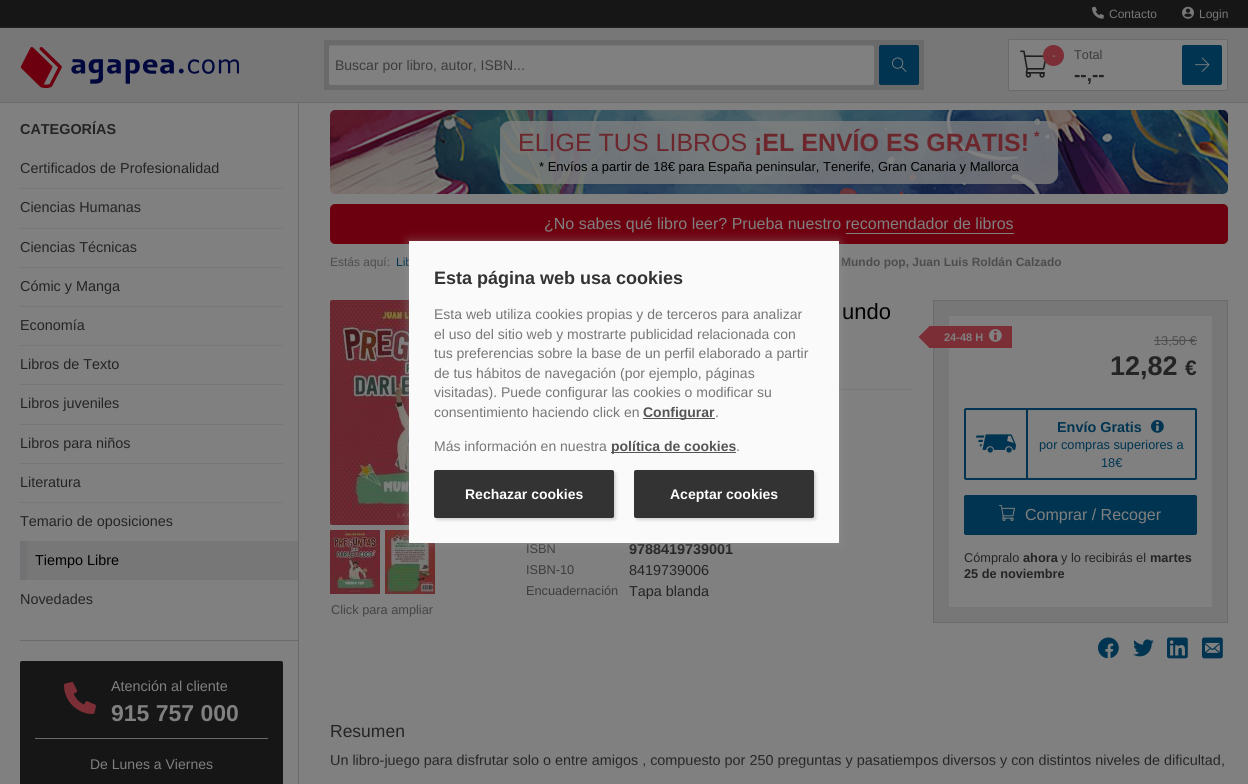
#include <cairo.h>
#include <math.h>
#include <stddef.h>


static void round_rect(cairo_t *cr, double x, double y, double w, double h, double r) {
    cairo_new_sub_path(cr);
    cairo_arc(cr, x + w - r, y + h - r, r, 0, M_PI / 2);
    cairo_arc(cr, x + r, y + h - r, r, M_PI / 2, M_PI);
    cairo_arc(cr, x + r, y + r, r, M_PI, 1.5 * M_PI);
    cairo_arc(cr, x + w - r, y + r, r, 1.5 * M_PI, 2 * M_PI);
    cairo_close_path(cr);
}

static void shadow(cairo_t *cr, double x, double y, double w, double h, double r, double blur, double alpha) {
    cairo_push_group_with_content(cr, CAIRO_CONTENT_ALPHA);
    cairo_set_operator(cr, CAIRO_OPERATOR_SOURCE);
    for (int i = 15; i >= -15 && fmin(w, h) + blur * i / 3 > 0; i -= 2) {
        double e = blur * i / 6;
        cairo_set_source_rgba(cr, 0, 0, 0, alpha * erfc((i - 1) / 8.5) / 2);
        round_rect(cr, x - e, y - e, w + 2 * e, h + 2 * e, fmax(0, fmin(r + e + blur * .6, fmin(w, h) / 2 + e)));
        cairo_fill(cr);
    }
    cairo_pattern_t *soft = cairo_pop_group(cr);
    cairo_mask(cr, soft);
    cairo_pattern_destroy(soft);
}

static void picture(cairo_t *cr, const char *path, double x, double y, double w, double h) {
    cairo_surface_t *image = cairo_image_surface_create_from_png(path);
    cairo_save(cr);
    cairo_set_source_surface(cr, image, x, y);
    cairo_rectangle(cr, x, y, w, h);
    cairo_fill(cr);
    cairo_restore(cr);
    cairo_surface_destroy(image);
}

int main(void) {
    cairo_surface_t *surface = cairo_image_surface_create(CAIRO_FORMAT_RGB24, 1248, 784);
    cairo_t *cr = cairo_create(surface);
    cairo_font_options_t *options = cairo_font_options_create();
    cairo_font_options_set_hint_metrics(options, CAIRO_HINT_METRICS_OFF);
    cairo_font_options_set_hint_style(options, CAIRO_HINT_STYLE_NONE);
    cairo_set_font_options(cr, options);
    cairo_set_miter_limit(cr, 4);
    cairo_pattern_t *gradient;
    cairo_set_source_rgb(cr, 0.502, 0.502, 0.502);
    cairo_paint(cr);
    cairo_set_source_rgb(cr, 0.086, 0.086, 0.086);
    cairo_rectangle(cr, 0, 0, 1248, 27);
    cairo_fill(cr);
    cairo_set_source_rgb(cr, 0.133, 0.133, 0.133);
    cairo_rectangle(cr, 0, 27, 1248, 1);
    cairo_fill(cr);
    picture(cr, "img1.png", 1092, 6, 12, 13);
    cairo_select_font_face(cr, "Liberation Sans", CAIRO_FONT_SLANT_NORMAL, CAIRO_FONT_WEIGHT_NORMAL);
    cairo_set_font_size(cr, 12);
    cairo_set_source_rgb(cr, 0.467, 0.467, 0.467);
    cairo_move_to(cr, 1109, 18);
    cairo_show_text(cr, "Contacto");
    picture(cr, "img2.png", 1182, 6, 12, 13);
    cairo_move_to(cr, 1199, 18);
    cairo_show_text(cr, "Login");
    cairo_set_source_rgb(cr, 0.416, 0.416, 0.416);
    cairo_rectangle(cr, 298, 100, 1, 684);
    cairo_fill(cr);
    cairo_set_source_rgb(cr, 0.467, 0.467, 0.467);
    cairo_rectangle(cr, 0, 28, 1248, 74);
    cairo_fill(cr);
    cairo_set_source_rgb(cr, 0.416, 0.416, 0.416);
    cairo_rectangle(cr, 0, 102, 1248, 1);
    cairo_fill(cr);
    picture(cr, "img3.png", 20, 47, 219, 41);
    cairo_rectangle(cr, 324, 40, 600, 50);
    cairo_fill(cr);
    cairo_set_source_rgb(cr, 0.502, 0.502, 0.502);
    round_rect(cr, 329, 45, 545, 40, 2);
    cairo_fill(cr);
    cairo_set_source_rgba(cr, 0, 0, 0, 0.07);
    cairo_new_path(cr);
    cairo_move_to(cr, 331, 46);
    cairo_line_to(cr, 872, 46);
    cairo_curve_to(cr, 873, 46, 874, 47, 874, 48);
    cairo_curve_to(cr, 874, 47, 874, 45, 872, 45);
    cairo_line_to(cr, 331, 45);
    cairo_line_to(cr, 329, 46);
    cairo_line_to(cr, 329, 48);
    cairo_curve_to(cr, 329, 47, 330, 46, 331, 46);
    cairo_close_path(cr);
    cairo_fill(cr);
    cairo_set_font_size(cr, 14);
    cairo_set_source_rgb(cr, 0.235, 0.235, 0.235);
    cairo_move_to(cr, 335, 70);
    cairo_show_text(cr, "Buscar por libro, autor, ISBN...");
    cairo_set_source_rgb(cr, 0, 0.204, 0.314);
    round_rect(cr, 879, 45, 40, 40, 2);
    cairo_fill(cr);
    picture(cr, "img4.png", 892, 57, 15, 15);
    cairo_set_source_rgb(cr, 0.502, 0.502, 0.502);
    round_rect(cr, 1008.5, 39.5, 219, 51, 1.5);
    cairo_fill_preserve(cr);
    cairo_set_source_rgb(cr, 0.416, 0.416, 0.416);
    cairo_set_line_width(cr, 1);
    cairo_stroke(cr);
    picture(cr, "img5.png", 1020, 50, 26, 28);
    cairo_set_source_rgb(cr, 0.486, 0.18, 0.212);
    cairo_arc(cr, 1053.5, 55.5, 10.5, 0, 2 * M_PI);
    cairo_fill(cr);
    cairo_set_font_size(cr, 11);
    cairo_set_source_rgb(cr, 0.502, 0.502, 0.502);
    cairo_move_to(cr, 1052, 59);
    cairo_show_text(cr, "-");
    cairo_set_font_size(cr, 12.75);
    cairo_set_source_rgb(cr, 0.235, 0.235, 0.235);
    cairo_move_to(cr, 1074, 59);
    cairo_show_text(cr, "Total");
    cairo_select_font_face(cr, "Liberation Sans", CAIRO_FONT_SLANT_NORMAL, CAIRO_FONT_WEIGHT_BOLD);
    cairo_set_font_size(cr, 19);
    cairo_set_source_rgb(cr, 0.141, 0.141, 0.141);
    cairo_move_to(cr, 1074, 81);
    cairo_show_text(cr, "--,--");
    cairo_set_source_rgb(cr, 0, 0.204, 0.314);
    round_rect(cr, 1182, 45, 40, 40, 2);
    cairo_fill(cr);
    picture(cr, "img6.png", 1195, 57, 15, 15);
    cairo_set_source_rgb(cr, 0.416, 0.416, 0.416);
    cairo_rectangle(cr, 20, 640, 278, 1);
    cairo_fill(cr);
    cairo_set_font_size(cr, 14.4);
    cairo_set_source_rgb(cr, 0.141, 0.141, 0.141);
    cairo_move_to(cr, 20, 134);
    cairo_show_text(cr, "CATEGORÍAS");
    cairo_select_font_face(cr, "Liberation Sans", CAIRO_FONT_SLANT_NORMAL, CAIRO_FONT_WEIGHT_NORMAL);
    cairo_move_to(cr, 20, 173);
    cairo_show_text(cr, "Certificados de Profesionalidad");
    cairo_set_source_rgb(cr, 0.467, 0.467, 0.467);
    cairo_rectangle(cr, 20, 188, 263, 1);
    cairo_fill(cr);
    cairo_set_source_rgb(cr, 0.141, 0.141, 0.141);
    cairo_move_to(cr, 20, 212);
    cairo_show_text(cr, "Ciencias Humanas");
    cairo_set_source_rgb(cr, 0.467, 0.467, 0.467);
    cairo_rectangle(cr, 20, 228, 263, 1);
    cairo_fill(cr);
    cairo_set_source_rgb(cr, 0.141, 0.141, 0.141);
    cairo_move_to(cr, 20, 252);
    cairo_show_text(cr, "Ciencias Técnicas");
    cairo_set_source_rgb(cr, 0.467, 0.467, 0.467);
    cairo_rectangle(cr, 20, 267, 263, 1);
    cairo_fill(cr);
    cairo_set_source_rgb(cr, 0.141, 0.141, 0.141);
    cairo_move_to(cr, 20, 291);
    cairo_show_text(cr, "Cómic y Manga");
    cairo_set_source_rgb(cr, 0.467, 0.467, 0.467);
    cairo_rectangle(cr, 20, 306, 263, 1);
    cairo_fill(cr);
    cairo_set_source_rgb(cr, 0.141, 0.141, 0.141);
    cairo_move_to(cr, 20, 330);
    cairo_show_text(cr, "Economía");
    cairo_set_source_rgb(cr, 0.467, 0.467, 0.467);
    cairo_rectangle(cr, 20, 345, 263, 1);
    cairo_fill(cr);
    cairo_set_source_rgb(cr, 0.141, 0.141, 0.141);
    cairo_move_to(cr, 20, 369);
    cairo_show_text(cr, "Libros de Texto");
    cairo_set_source_rgb(cr, 0.467, 0.467, 0.467);
    cairo_rectangle(cr, 20, 384, 263, 1);
    cairo_fill(cr);
    cairo_set_source_rgb(cr, 0.141, 0.141, 0.141);
    cairo_move_to(cr, 20, 408);
    cairo_show_text(cr, "Libros juveniles");
    cairo_set_source_rgb(cr, 0.467, 0.467, 0.467);
    cairo_rectangle(cr, 20, 424, 263, 1);
    cairo_fill(cr);
    cairo_set_source_rgb(cr, 0.141, 0.141, 0.141);
    cairo_move_to(cr, 20, 448);
    cairo_show_text(cr, "Libros para niños");
    cairo_set_source_rgb(cr, 0.467, 0.467, 0.467);
    cairo_rectangle(cr, 20, 463, 263, 1);
    cairo_fill(cr);
    cairo_set_source_rgb(cr, 0.141, 0.141, 0.141);
    cairo_move_to(cr, 20, 487);
    cairo_show_text(cr, "Literatura");
    cairo_set_source_rgb(cr, 0.467, 0.467, 0.467);
    cairo_rectangle(cr, 20, 502, 263, 1);
    cairo_fill(cr);
    cairo_set_source_rgb(cr, 0.141, 0.141, 0.141);
    cairo_move_to(cr, 20, 526);
    cairo_show_text(cr, "Temario de oposiciones");
    cairo_set_source_rgb(cr, 0.467, 0.467, 0.467);
    cairo_rectangle(cr, 27, 541, 271, 39);
    cairo_fill(cr);
    cairo_set_source_rgb(cr, 0.447, 0.447, 0.455);
    cairo_rectangle(cr, 20, 541, 7, 39);
    cairo_fill(cr);
    cairo_set_source_rgb(cr, 0, 0, 0);
    cairo_move_to(cr, 35, 565);
    cairo_show_text(cr, "Tiempo Libre");
    cairo_set_source_rgb(cr, 0.141, 0.141, 0.141);
    cairo_move_to(cr, 20, 604);
    cairo_show_text(cr, "Novedades");
    cairo_set_source_rgb(cr, 0.086, 0.086, 0.086);
    round_rect(cr, 20, 661, 263, 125, 2);
    cairo_fill(cr);
    cairo_set_source_rgb(cr, 0.416, 0.416, 0.416);
    cairo_rectangle(cr, 35, 738, 233, 1);
    cairo_fill(cr);
    picture(cr, "img7.png", 64, 682, 32, 32);
    cairo_set_source_rgb(cr, 0.502, 0.502, 0.502);
    cairo_move_to(cr, 111, 691);
    cairo_show_text(cr, "Atención al cliente");
    cairo_select_font_face(cr, "Liberation Sans", CAIRO_FONT_SLANT_NORMAL, CAIRO_FONT_WEIGHT_BOLD);
    cairo_set_font_size(cr, 23);
    cairo_move_to(cr, 111, 721);
    cairo_show_text(cr, "915 757 000");
    cairo_select_font_face(cr, "Liberation Sans", CAIRO_FONT_SLANT_NORMAL, CAIRO_FONT_WEIGHT_NORMAL);
    cairo_set_font_size(cr, 14);
    cairo_move_to(cr, 90, 769);
    cairo_show_text(cr, "De Lunes a Viernes");
    picture(cr, "img8.png", 330, 110, 898, 84);
    cairo_set_source_rgba(cr, 0.502, 0.502, 0.502, 0.8);
    round_rect(cr, 500, 121, 558, 63, 10);
    cairo_fill(cr);
    cairo_set_font_size(cr, 25);
    cairo_set_source_rgb(cr, 0.424, 0.153, 0.176);
    cairo_move_to(cr, 518, 151);
    cairo_show_text(cr, "ELIGE TUS LIBROS");
    cairo_select_font_face(cr, "Liberation Sans", CAIRO_FONT_SLANT_NORMAL, CAIRO_FONT_WEIGHT_BOLD);
    cairo_move_to(cr, 754, 151);
    cairo_show_text(cr, "¡EL ENVÍO ES GRATIS!");
    cairo_set_font_size(cr, 14);
    cairo_move_to(cr, 1034, 141);
    cairo_show_text(cr, "*");
    cairo_select_font_face(cr, "Liberation Sans", CAIRO_FONT_SLANT_NORMAL, CAIRO_FONT_WEIGHT_NORMAL);
    cairo_set_font_size(cr, 13);
    cairo_set_source_rgb(cr, 0, 0, 0);
    cairo_move_to(cr, 539, 171);
    cairo_show_text(cr, "* Envíos a partir de 18€ para España peninsular, Tenerife, Gran Canaria y Mallorca");
    cairo_set_source_rgb(cr, 0.427, 0, 0.059);
    round_rect(cr, 330, 204, 898, 40, 5);
    cairo_fill(cr);
    cairo_set_font_size(cr, 16);
    cairo_set_source_rgb(cr, 0.502, 0.502, 0.502);
    cairo_move_to(cr, 544, 229);
    cairo_show_text(cr, "¿No sabes qué libro leer? Prueba nuestro recomendador de libros");
    cairo_rectangle(cr, 846, 233, 168, 1);
    cairo_fill(cr);
    cairo_set_font_size(cr, 12);
    cairo_set_source_rgb(cr, 0.302, 0.302, 0.302);
    cairo_move_to(cr, 330, 266);
    cairo_show_text(cr, "Estás aquí:");
    cairo_set_source_rgb(cr, 0, 0.204, 0.314);
    cairo_move_to(cr, 396, 266);
    cairo_show_text(cr, "Lib");
    cairo_select_font_face(cr, "Liberation Sans", CAIRO_FONT_SLANT_NORMAL, CAIRO_FONT_WEIGHT_BOLD);
    cairo_set_source_rgb(cr, 0.302, 0.302, 0.302);
    cairo_move_to(cr, 841, 266);
    cairo_show_text(cr, "Mundo pop, Juan Luis Roldán Calzado");
    cairo_select_font_face(cr, "Liberation Sans", CAIRO_FONT_SLANT_NORMAL, CAIRO_FONT_WEIGHT_NORMAL);
    cairo_set_font_size(cr, 22);
    cairo_set_source_rgb(cr, 0, 0, 0);
    cairo_move_to(cr, 842, 319);
    cairo_show_text(cr, "undo");
    cairo_set_source_rgb(cr, 0.467, 0.467, 0.467);
    cairo_rectangle(cr, 839, 389, 74, 1);
    cairo_fill(cr);
    cairo_set_font_size(cr, 12.75);
    cairo_set_source_rgb(cr, 0.235, 0.235, 0.235);
    cairo_move_to(cr, 526, 553);
    cairo_show_text(cr, "ISBN");
    cairo_select_font_face(cr, "Liberation Sans", CAIRO_FONT_SLANT_NORMAL, CAIRO_FONT_WEIGHT_BOLD);
    cairo_set_font_size(cr, 14.4);
    cairo_set_source_rgb(cr, 0.141, 0.141, 0.141);
    cairo_move_to(cr, 629, 554);
    cairo_show_text(cr, "9788419739001");
    cairo_select_font_face(cr, "Liberation Sans", CAIRO_FONT_SLANT_NORMAL, CAIRO_FONT_WEIGHT_NORMAL);
    cairo_set_font_size(cr, 12.75);
    cairo_set_source_rgb(cr, 0.235, 0.235, 0.235);
    cairo_move_to(cr, 526, 574);
    cairo_show_text(cr, "ISBN-10");
    cairo_set_font_size(cr, 14.4);
    cairo_set_source_rgb(cr, 0.141, 0.141, 0.141);
    cairo_move_to(cr, 629, 575);
    cairo_show_text(cr, "8419739006");
    cairo_set_font_size(cr, 12.75);
    cairo_set_source_rgb(cr, 0.235, 0.235, 0.235);
    cairo_move_to(cr, 526, 595);
    cairo_show_text(cr, "Encuadernación");
    cairo_set_font_size(cr, 14.4);
    cairo_set_source_rgb(cr, 0.141, 0.141, 0.141);
    cairo_move_to(cr, 629, 596);
    cairo_show_text(cr, "Tapa blanda");
    cairo_set_source_rgb(cr, 0.467, 0.467, 0.467);
    cairo_rectangle(cr, 933.5, 300.5, 294, 322);
    cairo_fill_preserve(cr);
    cairo_set_source_rgb(cr, 0.416, 0.416, 0.416);
    cairo_stroke(cr);
    cairo_set_source_rgb(cr, 0.502, 0.502, 0.502);
    cairo_rectangle(cr, 949, 316, 263, 291);
    cairo_fill(cr);
    cairo_set_source_rgb(cr, 0.486, 0.18, 0.212);
    cairo_rectangle(cr, 929, 326, 83, 22);
    cairo_fill(cr);
    cairo_new_path(cr);
    cairo_move_to(cr, 930, 348.5);
    cairo_line_to(cr, 918.5, 337);
    cairo_line_to(cr, 930, 337);
    cairo_close_path(cr);
    cairo_move_to(cr, 918.5, 337);
    cairo_line_to(cr, 930, 325.5);
    cairo_line_to(cr, 930, 337);
    cairo_close_path(cr);
    cairo_fill(cr);
    cairo_select_font_face(cr, "Liberation Sans", CAIRO_FONT_SLANT_NORMAL, CAIRO_FONT_WEIGHT_BOLD);
    cairo_set_font_size(cr, 11);
    cairo_set_source_rgb(cr, 0.502, 0.502, 0.502);
    cairo_move_to(cr, 944, 341);
    cairo_show_text(cr, "24-48 H");
    picture(cr, "img9.png", 989, 329, 13, 13);
    cairo_select_font_face(cr, "Liberation Sans", CAIRO_FONT_SLANT_NORMAL, CAIRO_FONT_WEIGHT_NORMAL);
    cairo_set_font_size(cr, 12.75);
    cairo_set_source_rgb(cr, 0.302, 0.302, 0.302);
    cairo_move_to(cr, 1154, 345);
    cairo_show_text(cr, "13,50 €");
    cairo_rectangle(cr, 1154, 340, 43, 1);
    cairo_fill(cr);
    cairo_select_font_face(cr, "Liberation Sans", CAIRO_FONT_SLANT_NORMAL, CAIRO_FONT_WEIGHT_BOLD);
    cairo_set_font_size(cr, 27);
    cairo_set_source_rgb(cr, 0.141, 0.141, 0.141);
    cairo_move_to(cr, 1110, 375);
    cairo_show_text(cr, "12,82");
    cairo_set_font_size(cr, 21);
    cairo_move_to(cr, 1185, 375);
    cairo_show_text(cr, "€");
    round_rect(cr, 965, 409, 231, 70, 1);
    cairo_set_source_rgb(cr, 0, 0.204, 0.314);
    cairo_set_line_width(cr, 2);
    cairo_stroke(cr);
    cairo_rectangle(cr, 1026, 410, 2, 68);
    cairo_fill(cr);
    picture(cr, "img10.png", 976, 434, 40, 19);
    cairo_set_font_size(cr, 14.4);
    cairo_move_to(cr, 1057, 432);
    cairo_show_text(cr, "Envío Gratis");
    picture(cr, "img11.png", 1151, 420, 13, 13);
    cairo_select_font_face(cr, "Liberation Sans", CAIRO_FONT_SLANT_NORMAL, CAIRO_FONT_WEIGHT_NORMAL);
    cairo_set_font_size(cr, 12.75);
    cairo_move_to(cr, 1039, 449);
    cairo_show_text(cr, "por compras superiores a");
    cairo_move_to(cr, 1101, 467);
    cairo_show_text(cr, "18€");
    round_rect(cr, 964, 495, 233, 40, 2);
    cairo_fill(cr);
    picture(cr, "img12.png", 999, 505, 16, 16);
    cairo_set_font_size(cr, 16);
    cairo_set_source_rgb(cr, 0.502, 0.502, 0.502);
    cairo_move_to(cr, 1025, 520);
    cairo_show_text(cr, "Comprar / Recoger");
    cairo_set_font_size(cr, 12.75);
    cairo_set_source_rgb(cr, 0.141, 0.141, 0.141);
    cairo_move_to(cr, 964, 562);
    cairo_show_text(cr, "Cómpralo");
    cairo_select_font_face(cr, "Liberation Sans", CAIRO_FONT_SLANT_NORMAL, CAIRO_FONT_WEIGHT_BOLD);
    cairo_move_to(cr, 1023, 562);
    cairo_show_text(cr, "ahora");
    cairo_select_font_face(cr, "Liberation Sans", CAIRO_FONT_SLANT_NORMAL, CAIRO_FONT_WEIGHT_NORMAL);
    cairo_move_to(cr, 1061, 562);
    cairo_show_text(cr, "y lo recibirás el");
    cairo_select_font_face(cr, "Liberation Sans", CAIRO_FONT_SLANT_NORMAL, CAIRO_FONT_WEIGHT_BOLD);
    cairo_move_to(cr, 1150, 562);
    cairo_show_text(cr, "martes");
    cairo_move_to(cr, 964, 578);
    cairo_show_text(cr, "25 de noviembre");
    picture(cr, "img13.png", 1098, 637, 21, 22);
    picture(cr, "img14.png", 1133, 639, 21, 18);
    picture(cr, "img15.png", 1167, 637, 21, 22);
    picture(cr, "img16.png", 1202, 637, 21, 22);
    picture(cr, "img17.png", 330, 300, 79, 225);
    picture(cr, "img18.png", 330, 530, 50, 64);
    picture(cr, "img19.png", 385, 530, 50, 64);
    cairo_select_font_face(cr, "Liberation Sans", CAIRO_FONT_SLANT_NORMAL, CAIRO_FONT_WEIGHT_NORMAL);
    cairo_set_source_rgb(cr, 0.267, 0.267, 0.267);
    cairo_move_to(cr, 331, 614);
    cairo_show_text(cr, "Click para ampliar");
    cairo_set_font_size(cr, 17.5);
    cairo_set_source_rgb(cr, 0.141, 0.141, 0.141);
    cairo_move_to(cr, 330, 737);
    cairo_show_text(cr, "Resumen");
    cairo_set_font_size(cr, 14.4);
    cairo_move_to(cr, 330, 765);
    cairo_show_text(cr, "Un libro-juego para disfrutar solo o entre amigos , compuesto por 250 preguntas y pasatiempos diversos y con distintos niveles de dificultad,");
    gradient = cairo_pattern_create_linear(779, 761, 779, 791);
    cairo_pattern_add_color_stop_rgba(gradient, 0, 0.502, 0.502, 0.502, 0);
    cairo_pattern_add_color_stop_rgba(gradient, 1, 0.502, 0.502, 0.502, 1);
    cairo_set_source(cr, gradient);
    cairo_pattern_destroy(gradient);
    cairo_rectangle(cr, 331, 762, 892, 6);
    cairo_fill(cr);
    cairo_set_source_rgb(cr, 0.6, 0.6, 0.6);
    shadow(cr, 409, 241, 430, 302, 0, 5, 0.5);
    cairo_set_source_rgb(cr, 0.98, 0.98, 0.98);
    cairo_rectangle(cr, 409, 241, 430, 302);
    cairo_fill(cr);
    cairo_select_font_face(cr, "Liberation Sans", CAIRO_FONT_SLANT_NORMAL, CAIRO_FONT_WEIGHT_BOLD);
    cairo_set_font_size(cr, 18);
    cairo_set_source_rgb(cr, 0.2, 0.2, 0.2);
    cairo_move_to(cr, 434, 284);
    cairo_show_text(cr, "Esta página web usa cookies");
    cairo_select_font_face(cr, "Liberation Sans", CAIRO_FONT_SLANT_NORMAL, CAIRO_FONT_WEIGHT_NORMAL);
    cairo_set_font_size(cr, 14);
    cairo_set_source_rgb(cr, 0.467, 0.467, 0.467);
    cairo_move_to(cr, 434, 319);
    cairo_show_text(cr, "Esta web utiliza cookies propias y de terceros para analizar");
    cairo_move_to(cr, 434, 339);
    cairo_show_text(cr, "el uso del sitio web y mostrarte publicidad relacionada con");
    cairo_move_to(cr, 434, 358);
    cairo_show_text(cr, "tus preferencias sobre la base de un perfil elaborado a partir");
    cairo_move_to(cr, 434, 378);
    cairo_show_text(cr, "de tus hábitos de navegación (por ejemplo, páginas");
    cairo_move_to(cr, 434, 397);
    cairo_show_text(cr, "visitadas). Puede configurar las cookies o modificar su");
    cairo_move_to(cr, 434, 417);
    cairo_show_text(cr, "consentimiento haciendo click en");
    cairo_set_source_rgb(cr, 0.333, 0.333, 0.333);
    cairo_rectangle(cr, 643, 418, 72, 1);
    cairo_fill(cr);
    cairo_select_font_face(cr, "Liberation Sans", CAIRO_FONT_SLANT_NORMAL, CAIRO_FONT_WEIGHT_BOLD);
    cairo_move_to(cr, 643, 417);
    cairo_show_text(cr, "Configurar");
    cairo_select_font_face(cr, "Liberation Sans", CAIRO_FONT_SLANT_NORMAL, CAIRO_FONT_WEIGHT_NORMAL);
    cairo_set_source_rgb(cr, 0.467, 0.467, 0.467);
    cairo_move_to(cr, 715, 417);
    cairo_show_text(cr, ".");
    cairo_move_to(cr, 434, 451);
    cairo_show_text(cr, "Más información en nuestra");
    cairo_set_source_rgb(cr, 0.333, 0.333, 0.333);
    cairo_rectangle(cr, 611, 452, 125, 1);
    cairo_fill(cr);
    cairo_select_font_face(cr, "Liberation Sans", CAIRO_FONT_SLANT_NORMAL, CAIRO_FONT_WEIGHT_BOLD);
    cairo_move_to(cr, 611, 451);
    cairo_show_text(cr, "política de cookies");
    cairo_select_font_face(cr, "Liberation Sans", CAIRO_FONT_SLANT_NORMAL, CAIRO_FONT_WEIGHT_NORMAL);
    cairo_set_source_rgb(cr, 0.467, 0.467, 0.467);
    cairo_move_to(cr, 736, 451);
    cairo_show_text(cr, ".");
    cairo_set_source_rgb(cr, 0.467, 0.467, 0.467);
    shadow(cr, 436, 472, 180, 48, 2, 1.5, 0.3);
    cairo_set_source_rgb(cr, 0.2, 0.2, 0.2);
    round_rect(cr, 435, 471, 178, 46, 1);
    cairo_fill_preserve(cr);
    cairo_stroke(cr);
    cairo_select_font_face(cr, "Liberation Sans", CAIRO_FONT_SLANT_NORMAL, CAIRO_FONT_WEIGHT_BOLD);
    cairo_set_source_rgb(cr, 1, 1, 1);
    cairo_move_to(cr, 465, 499);
    cairo_show_text(cr, "Rechazar cookies");
    cairo_set_source_rgb(cr, 0.467, 0.467, 0.467);
    shadow(cr, 636, 472, 180, 48, 2, 1.5, 0.3);
    cairo_set_source_rgb(cr, 0.2, 0.2, 0.2);
    round_rect(cr, 635, 471, 178, 46, 1);
    cairo_fill_preserve(cr);
    cairo_stroke(cr);
    cairo_set_source_rgb(cr, 1, 1, 1);
    cairo_move_to(cr, 670, 499);
    cairo_show_text(cr, "Aceptar cookies");
    cairo_surface_write_to_png(surface, "page.png");
    cairo_font_options_destroy(options);
    cairo_destroy(cr);
    cairo_surface_destroy(surface);
    return 0;
}
